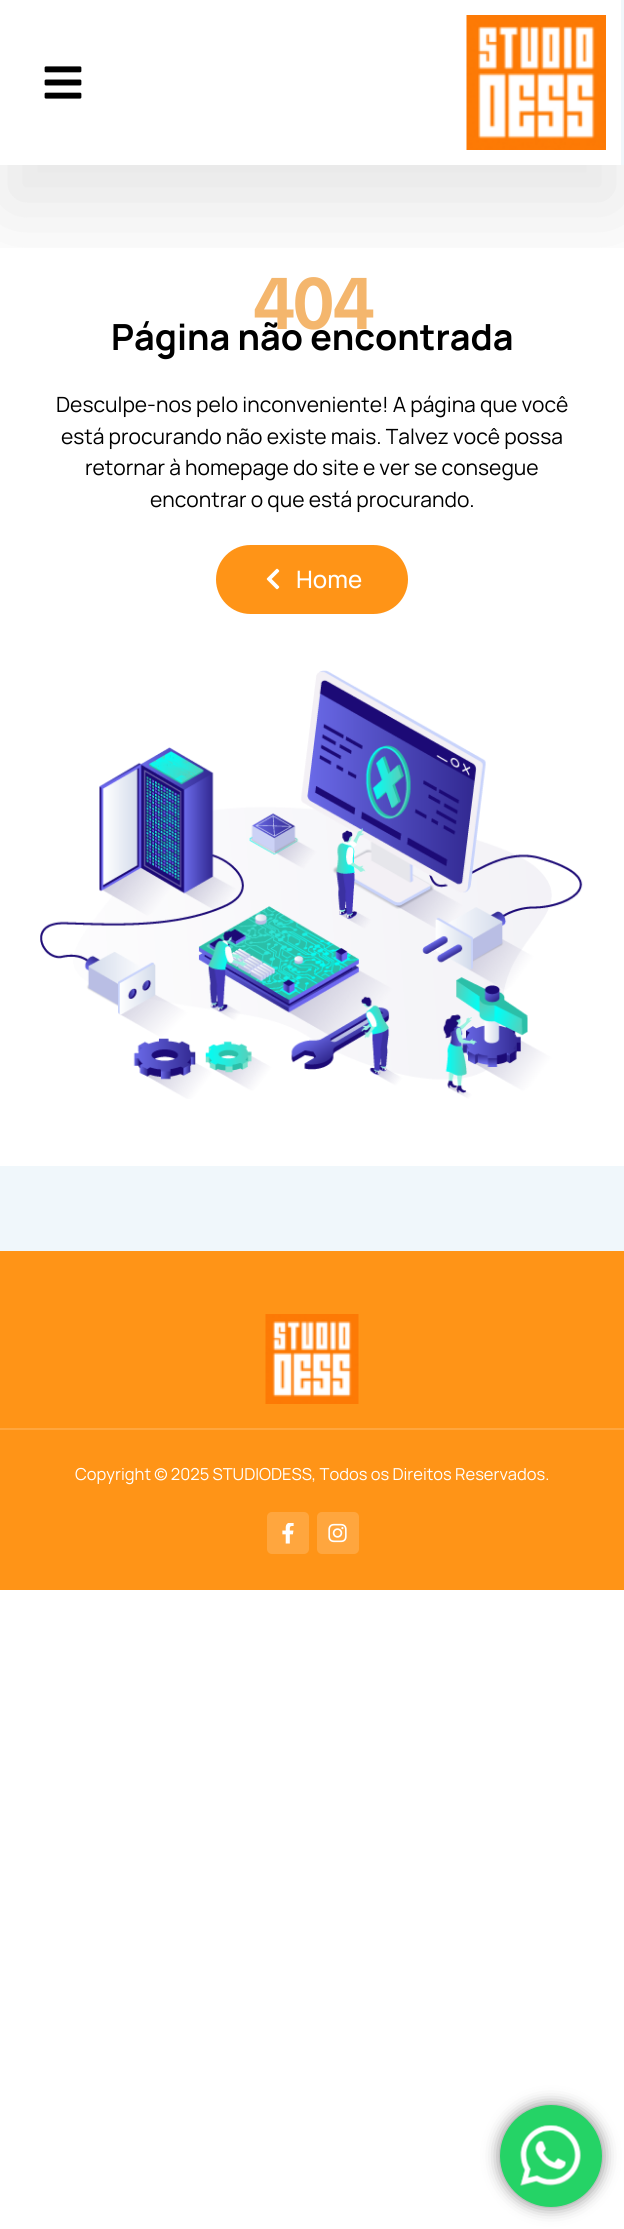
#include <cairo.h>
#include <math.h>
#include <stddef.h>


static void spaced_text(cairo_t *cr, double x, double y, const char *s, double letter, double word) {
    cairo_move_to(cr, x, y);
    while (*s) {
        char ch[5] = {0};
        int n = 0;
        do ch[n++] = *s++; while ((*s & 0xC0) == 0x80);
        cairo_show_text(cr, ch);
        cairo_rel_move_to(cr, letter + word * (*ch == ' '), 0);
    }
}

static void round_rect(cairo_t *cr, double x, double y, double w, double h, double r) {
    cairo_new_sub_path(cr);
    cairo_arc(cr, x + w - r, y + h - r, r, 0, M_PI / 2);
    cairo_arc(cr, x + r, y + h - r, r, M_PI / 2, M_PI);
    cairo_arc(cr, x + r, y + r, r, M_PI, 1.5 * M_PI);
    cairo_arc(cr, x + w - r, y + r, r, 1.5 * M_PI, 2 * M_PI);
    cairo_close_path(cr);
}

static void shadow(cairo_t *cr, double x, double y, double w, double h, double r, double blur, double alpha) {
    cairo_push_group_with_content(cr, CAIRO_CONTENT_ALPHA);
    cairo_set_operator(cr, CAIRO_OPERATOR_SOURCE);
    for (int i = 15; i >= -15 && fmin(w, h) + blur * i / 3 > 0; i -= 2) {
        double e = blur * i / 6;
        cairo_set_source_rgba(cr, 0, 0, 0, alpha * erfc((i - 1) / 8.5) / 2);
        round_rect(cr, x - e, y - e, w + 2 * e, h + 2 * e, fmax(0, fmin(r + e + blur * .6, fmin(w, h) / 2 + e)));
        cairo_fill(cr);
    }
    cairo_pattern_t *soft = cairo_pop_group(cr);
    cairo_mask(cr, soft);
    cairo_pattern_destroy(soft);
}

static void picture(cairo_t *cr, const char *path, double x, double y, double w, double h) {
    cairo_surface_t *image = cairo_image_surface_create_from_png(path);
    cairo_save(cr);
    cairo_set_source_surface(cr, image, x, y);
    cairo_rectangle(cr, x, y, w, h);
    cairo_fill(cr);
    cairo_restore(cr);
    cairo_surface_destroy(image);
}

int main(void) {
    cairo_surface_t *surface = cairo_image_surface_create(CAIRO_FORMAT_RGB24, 624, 2229);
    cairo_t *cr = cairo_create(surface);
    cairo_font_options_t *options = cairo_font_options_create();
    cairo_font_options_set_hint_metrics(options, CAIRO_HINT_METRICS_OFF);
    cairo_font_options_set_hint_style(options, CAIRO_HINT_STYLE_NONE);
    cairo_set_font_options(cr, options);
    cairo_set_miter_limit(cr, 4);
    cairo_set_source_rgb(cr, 1, 1, 1);
    cairo_paint(cr);
    cairo_save(cr);
    cairo_rectangle(cr, 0, 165, 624, 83);
    cairo_clip(cr);
    cairo_set_source_rgb(cr, 0, 0, 0);
    shadow(cr, 0, 45, 624, 165, 0, 45, 0.1);
    cairo_restore(cr);
    picture(cr, "img1.png", 44, 66, 38, 33);
    cairo_set_source_rgb(cr, 0.941, 0.965, 0.984);
    cairo_rectangle(cr, 621, 0, 3, 165);
    cairo_fill(cr);
    picture(cr, "img2.png", 466, 15, 140, 135);
    cairo_select_font_face(cr, "Hind SemiBold", CAIRO_FONT_SLANT_NORMAL, CAIRO_FONT_WEIGHT_NORMAL);
    cairo_set_font_size(cr, 78);
    cairo_set_source_rgb(cr, 0.957, 0.714, 0.427);
    spaced_text(cr, 252, 329, "404", -3, 0);
    cairo_select_font_face(cr, "Manrope", CAIRO_FONT_SLANT_NORMAL, CAIRO_FONT_WEIGHT_BOLD);
    cairo_set_font_size(cr, 36);
    cairo_set_source_rgb(cr, 0, 0, 0);
    cairo_move_to(cr, 111, 350);
    cairo_show_text(cr, "Página não encontrada");
    cairo_select_font_face(cr, "Manrope", CAIRO_FONT_SLANT_NORMAL, CAIRO_FONT_WEIGHT_NORMAL);
    cairo_set_font_size(cr, 21);
    cairo_move_to(cr, 56, 412);
    cairo_show_text(cr, "Desculpe-nos pelo inconveniente! A página que você");
    cairo_move_to(cr, 61, 444);
    cairo_show_text(cr, "está procurando não existe mais. Talvez você possa");
    cairo_move_to(cr, 85, 475);
    cairo_show_text(cr, "retornar à homepage do site e ver se consegue");
    cairo_move_to(cr, 150, 507);
    cairo_show_text(cr, "encontrar o que está procurando.");
    cairo_set_source_rgb(cr, 1, 0.58, 0.09);
    round_rect(cr, 216, 545, 192, 69, 34.5);
    cairo_fill(cr);
    picture(cr, "img3.png", 266, 568, 14, 22);
    cairo_select_font_face(cr, "Manrope Medium", CAIRO_FONT_SLANT_NORMAL, CAIRO_FONT_WEIGHT_NORMAL);
    cairo_set_font_size(cr, 24);
    cairo_set_source_rgb(cr, 1, 1, 1);
    cairo_move_to(cr, 296, 588);
    cairo_show_text(cr, "Home");
    picture(cr, "img4.png", 40, 670, 543, 429);
    cairo_set_source_rgb(cr, 0.941, 0.965, 0.984);
    cairo_rectangle(cr, 0, 1166, 624, 85);
    cairo_fill(cr);
    cairo_set_source_rgb(cr, 1, 0.58, 0.09);
    cairo_rectangle(cr, 0, 1251, 624, 339);
    cairo_fill(cr);
    cairo_set_source_rgb(cr, 1, 0.651, 0.243);
    cairo_rectangle(cr, 0, 1428, 624, 2);
    cairo_fill(cr);
    picture(cr, "img5.png", 265, 1314, 94, 90);
    cairo_select_font_face(cr, "Manrope", CAIRO_FONT_SLANT_NORMAL, CAIRO_FONT_WEIGHT_NORMAL);
    cairo_set_font_size(cr, 16.5);
    cairo_set_source_rgb(cr, 1, 1, 1);
    cairo_move_to(cr, 75, 1480);
    cairo_show_text(cr, "Copyright © 2025 STUDIODESS, Todos os Direitos Reservados.");
    cairo_set_source_rgb(cr, 1, 0.651, 0.243);
    round_rect(cr, 267, 1512, 42, 42, 5);
    cairo_fill(cr);
    picture(cr, "img6.png", 282, 1523, 12, 21);
    round_rect(cr, 317, 1512, 42, 42, 5);
    cairo_fill(cr);
    picture(cr, "img7.png", 328, 1523, 19, 20);
    cairo_set_source_rgb(cr, 0, 0, 0);
    shadow(cr, 500, 2105, 102, 102, 51, 8, 0.5);
    cairo_set_source_rgb(cr, 0.145, 0.827, 0.4);
    cairo_arc(cr, 551, 2156, 51, 0, 2 * M_PI);
    cairo_fill(cr);
    picture(cr, "img8.png", 520, 2125, 61, 61);
    cairo_surface_write_to_png(surface, "page.png");
    cairo_font_options_destroy(options);
    cairo_destroy(cr);
    cairo_surface_destroy(surface);
    return 0;
}
